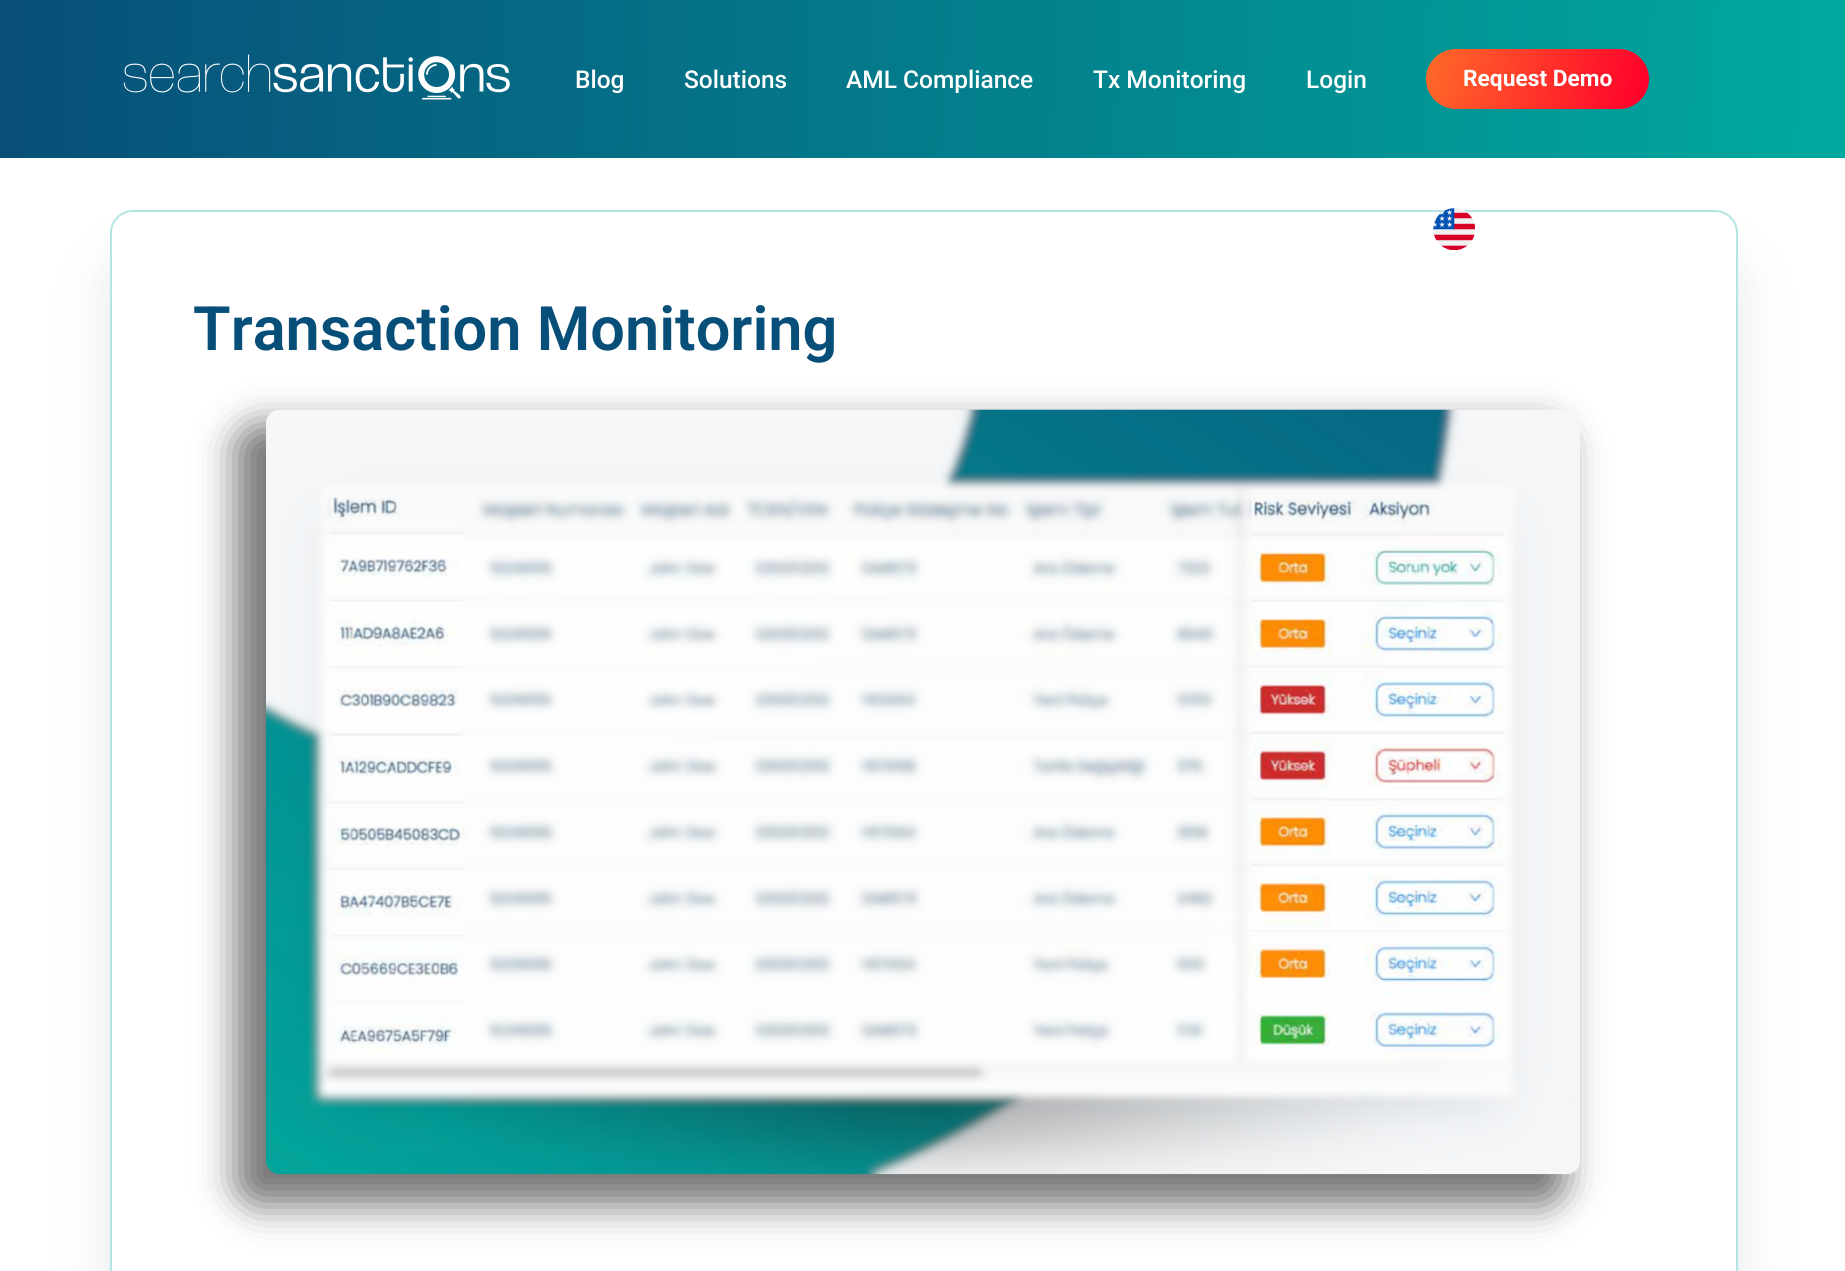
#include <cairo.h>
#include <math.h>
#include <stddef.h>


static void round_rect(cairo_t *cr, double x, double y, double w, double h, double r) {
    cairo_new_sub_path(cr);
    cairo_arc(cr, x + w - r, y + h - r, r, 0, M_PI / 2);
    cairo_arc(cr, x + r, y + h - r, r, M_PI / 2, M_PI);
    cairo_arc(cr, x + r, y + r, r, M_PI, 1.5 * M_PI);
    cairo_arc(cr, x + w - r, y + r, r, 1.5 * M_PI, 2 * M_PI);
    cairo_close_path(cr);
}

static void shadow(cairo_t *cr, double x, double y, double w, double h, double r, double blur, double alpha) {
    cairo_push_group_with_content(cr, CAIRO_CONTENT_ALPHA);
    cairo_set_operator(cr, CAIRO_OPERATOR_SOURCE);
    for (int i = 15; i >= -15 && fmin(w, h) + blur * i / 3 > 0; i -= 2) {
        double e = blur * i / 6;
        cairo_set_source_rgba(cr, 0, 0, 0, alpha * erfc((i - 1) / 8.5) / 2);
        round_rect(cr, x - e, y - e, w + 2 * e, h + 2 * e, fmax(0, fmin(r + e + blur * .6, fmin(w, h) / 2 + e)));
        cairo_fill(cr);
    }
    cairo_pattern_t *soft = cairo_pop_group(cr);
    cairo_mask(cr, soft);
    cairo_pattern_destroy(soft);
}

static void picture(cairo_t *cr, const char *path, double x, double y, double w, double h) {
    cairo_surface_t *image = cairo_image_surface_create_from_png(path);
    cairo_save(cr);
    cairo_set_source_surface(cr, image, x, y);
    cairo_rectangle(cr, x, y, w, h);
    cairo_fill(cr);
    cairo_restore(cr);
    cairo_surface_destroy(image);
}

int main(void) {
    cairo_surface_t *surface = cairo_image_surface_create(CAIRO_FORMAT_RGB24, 1845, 1271);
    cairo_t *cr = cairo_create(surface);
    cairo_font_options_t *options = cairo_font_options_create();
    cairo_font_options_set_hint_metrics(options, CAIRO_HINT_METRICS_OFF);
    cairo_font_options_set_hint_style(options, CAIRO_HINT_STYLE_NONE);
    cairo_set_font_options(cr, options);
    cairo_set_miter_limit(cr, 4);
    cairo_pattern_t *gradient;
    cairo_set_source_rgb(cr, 1, 1, 1);
    cairo_paint(cr);
    gradient = cairo_pattern_create_linear(-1.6, 46, 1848, 111);
    cairo_pattern_add_color_stop_rgba(gradient, 0, 0.031, 0.31, 0.475, 1);
    cairo_pattern_add_color_stop_rgba(gradient, 1, 0, 0.663, 0.616, 1);
    cairo_set_source(cr, gradient);
    cairo_pattern_destroy(gradient);
    cairo_rectangle(cr, 0, 0, 1845, 158);
    cairo_fill(cr);
    picture(cr, "img1.png", 123, 54, 387, 46);
    cairo_select_font_face(cr, "Roboto Medium", CAIRO_FONT_SLANT_NORMAL, CAIRO_FONT_WEIGHT_NORMAL);
    cairo_set_font_size(cr, 24.5);
    cairo_set_source_rgb(cr, 1, 1, 1);
    cairo_move_to(cr, 575, 88);
    cairo_show_text(cr, "Blog");
    cairo_move_to(cr, 684, 88);
    cairo_show_text(cr, "Solutions");
    cairo_move_to(cr, 846, 88);
    cairo_show_text(cr, "AML Compliance");
    cairo_move_to(cr, 1093, 88);
    cairo_show_text(cr, "Tx Monitoring");
    cairo_move_to(cr, 1306, 88);
    cairo_show_text(cr, "Login");
    gradient = cairo_pattern_create_linear(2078, 164, 1441, -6.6);
    cairo_pattern_add_color_stop_rgba(gradient, 0, 1, 0.302, 0.047, 1);
    cairo_pattern_add_color_stop_rgba(gradient, 0.33, 1, 0.231, 0.349, 1);
    cairo_pattern_add_color_stop_rgba(gradient, 0.66, 1, 0, 0.169, 1);
    cairo_pattern_add_color_stop_rgba(gradient, 1, 1, 0.42, 0.161, 1);
    cairo_set_source(cr, gradient);
    cairo_pattern_destroy(gradient);
    round_rect(cr, 1426, 49, 223, 60, 30);
    cairo_fill(cr);
    cairo_select_font_face(cr, "Roboto", CAIRO_FONT_SLANT_NORMAL, CAIRO_FONT_WEIGHT_BOLD);
    cairo_set_font_size(cr, 22.75);
    cairo_set_source_rgb(cr, 1, 1, 1);
    cairo_move_to(cr, 1463, 86);
    cairo_show_text(cr, "Request Demo");
    cairo_save(cr);
    cairo_set_fill_rule(cr, CAIRO_FILL_RULE_EVEN_ODD);
    cairo_new_path(cr);
    cairo_move_to(cr, 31, 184);
    cairo_line_to(cr, 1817, 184);
    cairo_line_to(cr, 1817, 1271);
    cairo_line_to(cr, 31, 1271);
    cairo_close_path(cr);
    cairo_move_to(cr, 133, 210);
    cairo_line_to(cr, 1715, 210);
    cairo_curve_to(cr, 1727.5, 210, 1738, 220.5, 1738, 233);
    cairo_line_to(cr, 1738, 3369);
    cairo_curve_to(cr, 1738, 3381.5, 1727.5, 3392, 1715, 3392);
    cairo_line_to(cr, 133, 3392);
    cairo_curve_to(cr, 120.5, 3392, 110, 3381.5, 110, 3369);
    cairo_line_to(cr, 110, 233);
    cairo_curve_to(cr, 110, 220.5, 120.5, 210, 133, 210);
    cairo_close_path(cr);
    cairo_clip(cr);
    cairo_set_source_rgb(cr, 0.451, 0.459, 0.647);
    shadow(cr, 110, 263, 1628, 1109, 23, 26, 0.17);
    cairo_restore(cr);
    round_rect(cr, 111, 211, 1626, 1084, 22);
    cairo_set_source_rgba(cr, 0, 0.663, 0.608, 0.3);
    cairo_stroke(cr);
    picture(cr, "img2.png", 1433, 208, 42, 42);
    cairo_select_font_face(cr, "Roboto SemiBold", CAIRO_FONT_SLANT_NORMAL, CAIRO_FONT_WEIGHT_NORMAL);
    cairo_set_font_size(cr, 61.25);
    cairo_set_source_rgb(cr, 0.031, 0.31, 0.475);
    cairo_move_to(cr, 193, 350);
    cairo_show_text(cr, "Transaction Monitoring");
    cairo_set_source_rgb(cr, 0, 0, 0);
    shadow(cr, 235, 424, 1331, 782, 23, 18.5, 0.53);
    picture(cr, "img3.png", 266, 409, 1314, 766);
    cairo_surface_write_to_png(surface, "page.png");
    cairo_font_options_destroy(options);
    cairo_destroy(cr);
    cairo_surface_destroy(surface);
    return 0;
}
